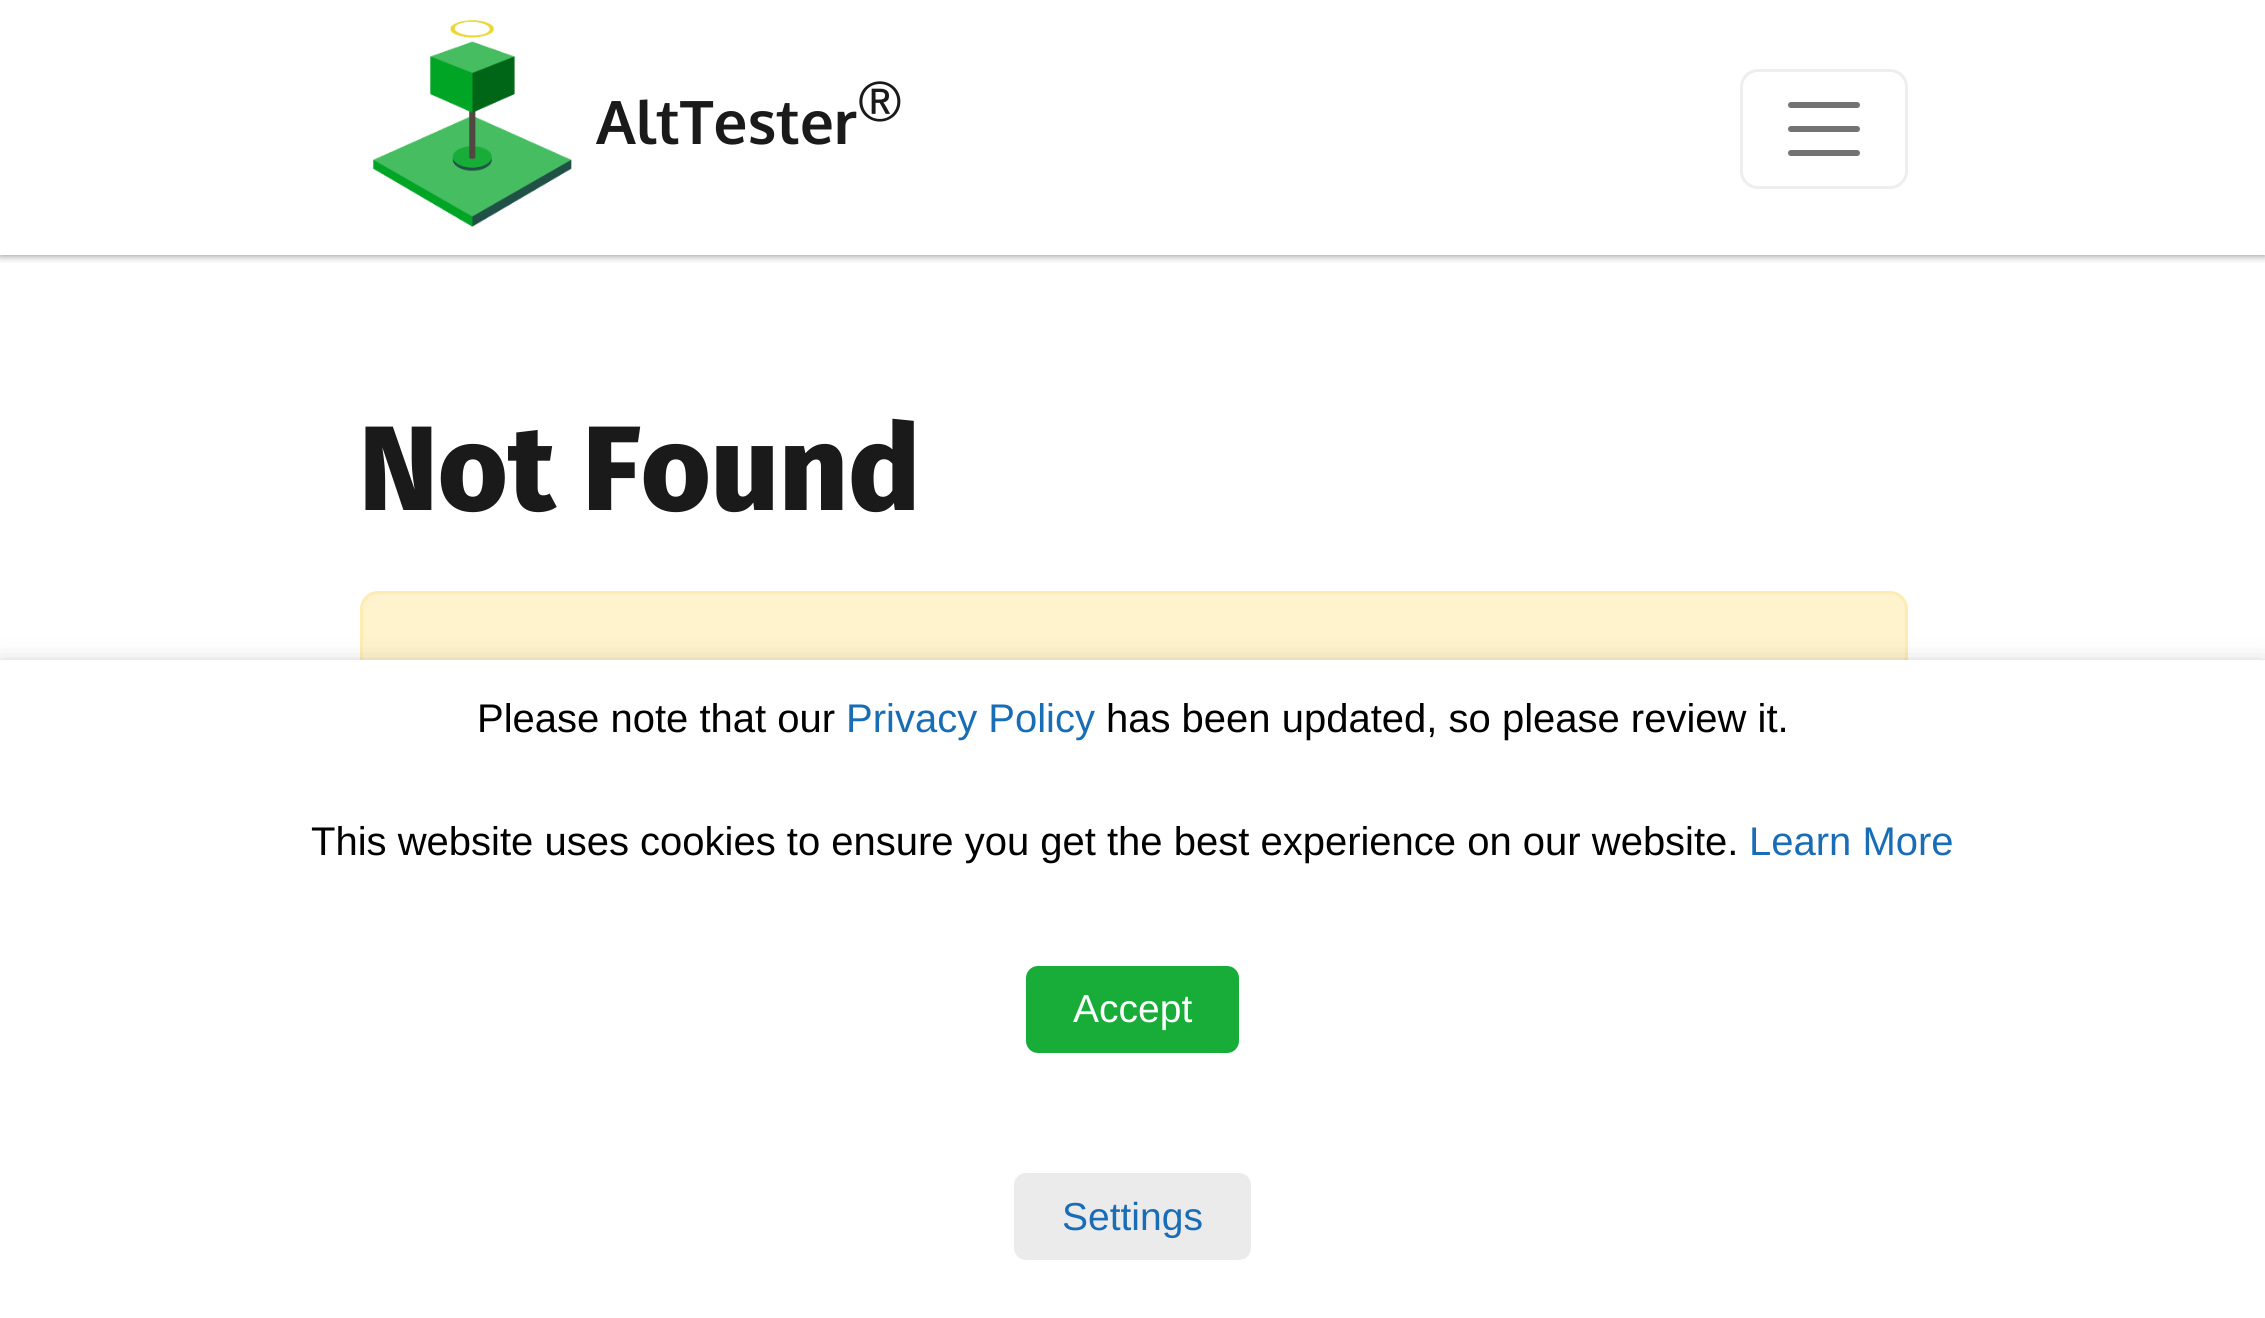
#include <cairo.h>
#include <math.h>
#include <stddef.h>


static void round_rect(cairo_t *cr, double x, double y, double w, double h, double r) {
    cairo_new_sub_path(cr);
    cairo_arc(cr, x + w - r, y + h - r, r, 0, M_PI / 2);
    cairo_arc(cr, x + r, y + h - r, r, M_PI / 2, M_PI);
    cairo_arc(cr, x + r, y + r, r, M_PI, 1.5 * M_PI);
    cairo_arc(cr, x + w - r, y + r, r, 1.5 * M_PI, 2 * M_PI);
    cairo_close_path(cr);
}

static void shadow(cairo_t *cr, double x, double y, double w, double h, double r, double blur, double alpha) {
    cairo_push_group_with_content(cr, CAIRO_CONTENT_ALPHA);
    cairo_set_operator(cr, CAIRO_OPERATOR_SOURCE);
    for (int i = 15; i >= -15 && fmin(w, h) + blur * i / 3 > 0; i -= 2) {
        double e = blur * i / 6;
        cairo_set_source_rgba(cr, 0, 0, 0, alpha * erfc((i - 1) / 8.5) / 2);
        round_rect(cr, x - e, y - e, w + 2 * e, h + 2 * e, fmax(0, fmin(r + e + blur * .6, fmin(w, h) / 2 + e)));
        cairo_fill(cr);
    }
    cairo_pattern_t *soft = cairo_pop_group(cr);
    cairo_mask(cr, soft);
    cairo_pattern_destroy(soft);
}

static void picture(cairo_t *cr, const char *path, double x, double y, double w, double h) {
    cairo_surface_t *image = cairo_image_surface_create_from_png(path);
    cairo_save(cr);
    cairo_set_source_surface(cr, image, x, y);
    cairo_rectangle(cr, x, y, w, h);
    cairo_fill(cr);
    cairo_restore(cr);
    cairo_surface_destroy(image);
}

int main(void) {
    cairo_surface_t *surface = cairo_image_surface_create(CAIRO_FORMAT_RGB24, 2265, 1318);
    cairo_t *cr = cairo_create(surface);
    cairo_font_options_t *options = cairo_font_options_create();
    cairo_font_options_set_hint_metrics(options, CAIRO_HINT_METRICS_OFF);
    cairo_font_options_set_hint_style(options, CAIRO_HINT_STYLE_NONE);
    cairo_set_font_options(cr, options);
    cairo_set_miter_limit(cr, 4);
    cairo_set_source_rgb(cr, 1, 1, 1);
    cairo_paint(cr);
    cairo_save(cr);
    cairo_rectangle(cr, 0, 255, 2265, 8);
    cairo_clip(cr);
    cairo_set_source_rgb(cr, 0, 0, 0);
    shadow(cr, 0, 0, 2265, 255, 0, 4.5, 0.5);
    cairo_restore(cr);
    picture(cr, "img1.png", 373, 20, 199, 207);
    cairo_select_font_face(cr, "Oxygen", CAIRO_FONT_SLANT_NORMAL, CAIRO_FONT_WEIGHT_BOLD);
    cairo_set_font_size(cr, 60);
    cairo_set_source_rgb(cr, 0.102, 0.102, 0.102);
    cairo_move_to(cr, 596, 144);
    cairo_show_text(cr, "AltTester");
    cairo_set_font_size(cr, 54);
    cairo_move_to(cr, 857, 121);
    cairo_show_text(cr, "®");
    round_rect(cr, 1741.5, 70.5, 165, 117, 16.5);
    cairo_set_source_rgb(cr, 0.933, 0.929, 0.937);
    cairo_set_line_width(cr, 3);
    cairo_stroke(cr);
    cairo_new_path(cr);
    cairo_move_to(cr, 1791, 105);
    cairo_line_to(cr, 1857, 105);
    cairo_move_to(cr, 1791, 129);
    cairo_line_to(cr, 1857, 129);
    cairo_move_to(cr, 1791, 153);
    cairo_line_to(cr, 1857, 153);
    cairo_set_source_rgb(cr, 0.451, 0.451, 0.451);
    cairo_set_line_width(cr, 6);
    cairo_set_line_cap(cr, CAIRO_LINE_CAP_ROUND);
    cairo_stroke(cr);
    cairo_select_font_face(cr, "Fira Sans ExtraBold", CAIRO_FONT_SLANT_NORMAL, CAIRO_FONT_WEIGHT_NORMAL);
    cairo_set_font_size(cr, 120);
    cairo_set_source_rgb(cr, 0.102, 0.102, 0.102);
    cairo_move_to(cr, 359, 510);
    cairo_show_text(cr, "Not Found");
    cairo_set_source_rgb(cr, 1, 0.953, 0.804);
    round_rect(cr, 361.5, 592.5, 1545, 171, 16.5);
    cairo_fill_preserve(cr);
    cairo_set_source_rgb(cr, 1, 0.925, 0.71);
    cairo_set_line_width(cr, 3);
    cairo_set_line_cap(cr, CAIRO_LINE_CAP_BUTT);
    cairo_stroke(cr);
    cairo_set_source_rgb(cr, 0, 0, 0);
    shadow(cr, 0, 675, 2265, 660, 0, 15, 0.5);
    cairo_set_source_rgb(cr, 1, 1, 1);
    cairo_rectangle(cr, 0, 660, 2265, 658);
    cairo_fill(cr);
    cairo_select_font_face(cr, "Liberation Sans", CAIRO_FONT_SLANT_NORMAL, CAIRO_FONT_WEIGHT_NORMAL);
    cairo_set_font_size(cr, 40);
    cairo_set_source_rgb(cr, 0, 0, 0);
    cairo_move_to(cr, 477, 732);
    cairo_show_text(cr, "Please note that our");
    cairo_set_source_rgb(cr, 0.098, 0.427, 0.714);
    cairo_move_to(cr, 846, 732);
    cairo_show_text(cr, "Privacy Policy");
    cairo_set_source_rgb(cr, 0, 0, 0);
    cairo_move_to(cr, 1106, 732);
    cairo_show_text(cr, "has been updated, so please review it.");
    cairo_move_to(cr, 311, 855);
    cairo_show_text(cr, "This website uses cookies to ensure you get the best experience on our website.");
    cairo_set_source_rgb(cr, 0.098, 0.427, 0.714);
    cairo_move_to(cr, 1749, 855);
    cairo_show_text(cr, "Learn More");
    cairo_set_source_rgb(cr, 0.09, 0.678, 0.22);
    round_rect(cr, 1026, 966, 213, 87, 12);
    cairo_fill(cr);
    cairo_set_font_size(cr, 39);
    cairo_set_source_rgb(cr, 1, 1, 1);
    cairo_move_to(cr, 1073, 1022);
    cairo_show_text(cr, "Accept");
    cairo_set_source_rgb(cr, 0.918, 0.918, 0.918);
    round_rect(cr, 1014, 1173, 237, 87, 12);
    cairo_fill(cr);
    cairo_set_source_rgb(cr, 0.098, 0.427, 0.714);
    cairo_move_to(cr, 1062, 1230);
    cairo_show_text(cr, "Settings");
    cairo_surface_write_to_png(surface, "page.png");
    cairo_font_options_destroy(options);
    cairo_destroy(cr);
    cairo_surface_destroy(surface);
    return 0;
}
